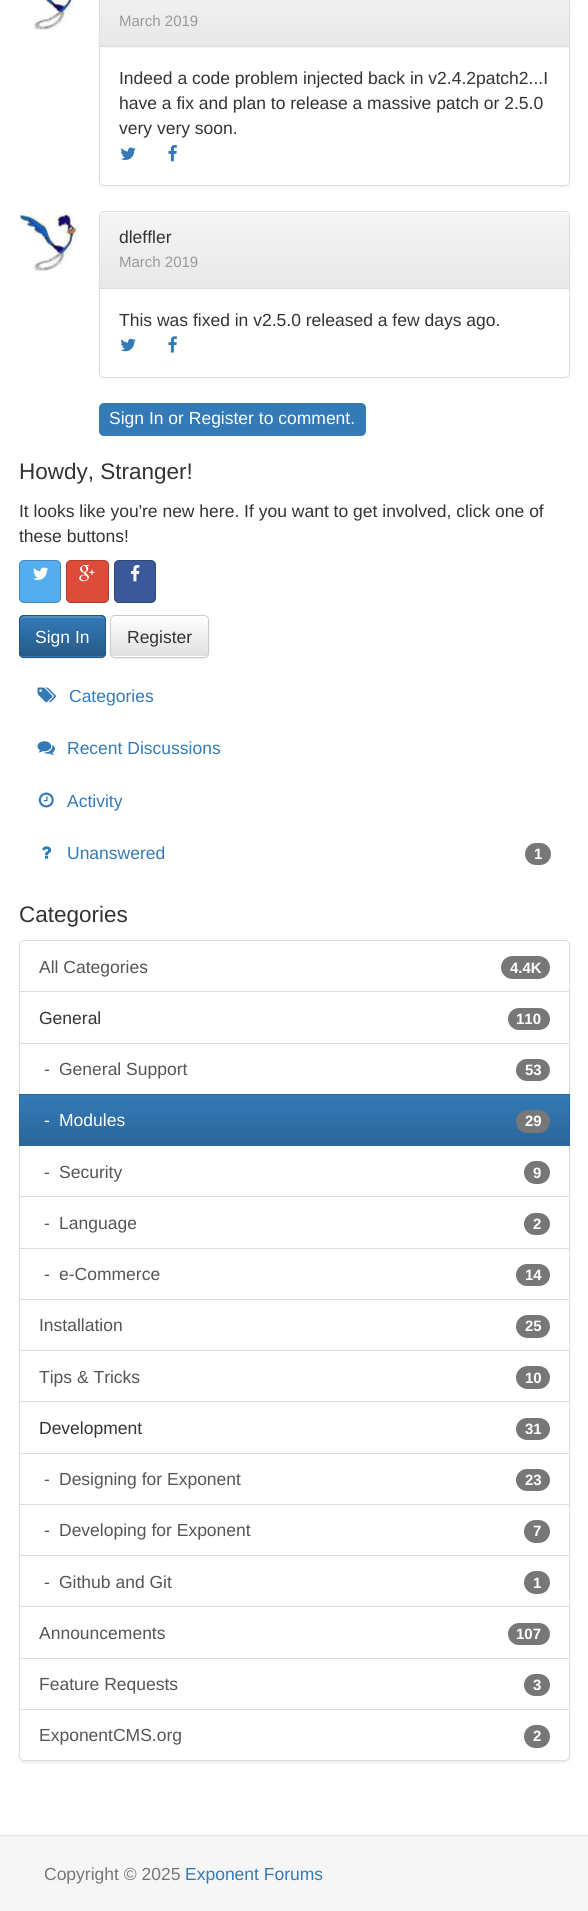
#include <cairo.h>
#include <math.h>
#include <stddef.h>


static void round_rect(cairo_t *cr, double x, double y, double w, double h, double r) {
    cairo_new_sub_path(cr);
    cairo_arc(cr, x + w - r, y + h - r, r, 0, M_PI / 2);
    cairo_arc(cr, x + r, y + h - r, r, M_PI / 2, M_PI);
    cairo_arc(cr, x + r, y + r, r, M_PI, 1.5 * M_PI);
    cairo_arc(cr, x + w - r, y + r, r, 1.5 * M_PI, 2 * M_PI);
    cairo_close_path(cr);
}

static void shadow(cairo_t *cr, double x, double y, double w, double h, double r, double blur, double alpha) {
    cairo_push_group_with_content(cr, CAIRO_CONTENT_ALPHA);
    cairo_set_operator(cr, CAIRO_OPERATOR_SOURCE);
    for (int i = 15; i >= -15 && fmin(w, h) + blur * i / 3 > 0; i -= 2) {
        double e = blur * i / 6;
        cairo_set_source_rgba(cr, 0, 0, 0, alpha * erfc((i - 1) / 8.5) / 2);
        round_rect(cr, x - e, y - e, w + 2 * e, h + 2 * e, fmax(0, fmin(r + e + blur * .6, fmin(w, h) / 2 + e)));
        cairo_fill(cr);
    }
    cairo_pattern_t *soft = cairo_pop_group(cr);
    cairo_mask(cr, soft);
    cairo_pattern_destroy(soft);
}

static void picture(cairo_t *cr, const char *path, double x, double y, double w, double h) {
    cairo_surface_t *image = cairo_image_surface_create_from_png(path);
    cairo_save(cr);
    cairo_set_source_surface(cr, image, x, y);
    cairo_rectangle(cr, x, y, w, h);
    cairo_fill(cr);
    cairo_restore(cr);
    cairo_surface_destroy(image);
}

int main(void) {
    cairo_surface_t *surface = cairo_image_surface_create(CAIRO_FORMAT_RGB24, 588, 1911);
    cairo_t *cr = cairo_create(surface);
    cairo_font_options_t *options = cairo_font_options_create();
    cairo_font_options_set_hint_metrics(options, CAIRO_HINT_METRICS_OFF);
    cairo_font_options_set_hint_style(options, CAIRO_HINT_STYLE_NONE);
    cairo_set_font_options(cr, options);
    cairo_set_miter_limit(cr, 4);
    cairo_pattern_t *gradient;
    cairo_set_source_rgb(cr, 1, 1, 1);
    cairo_paint(cr);
    cairo_save(cr);
    cairo_set_fill_rule(cr, CAIRO_FILL_RULE_EVEN_ODD);
    cairo_new_path(cr);
    cairo_move_to(cr, 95, 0);
    cairo_line_to(cr, 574, 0);
    cairo_line_to(cr, 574, 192);
    cairo_line_to(cr, 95, 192);
    cairo_close_path(cr);
    cairo_move_to(cr, 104, -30);
    cairo_line_to(cr, 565, -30);
    cairo_curve_to(cr, 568, -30, 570, -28, 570, -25);
    cairo_line_to(cr, 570, 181);
    cairo_curve_to(cr, 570, 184, 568, 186, 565, 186);
    cairo_line_to(cr, 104, 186);
    cairo_curve_to(cr, 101, 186, 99, 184, 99, 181);
    cairo_line_to(cr, 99, -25);
    cairo_curve_to(cr, 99, -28, 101, -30, 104, -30);
    cairo_close_path(cr);
    cairo_clip(cr);
    cairo_set_source_rgb(cr, 0, 0, 0);
    shadow(cr, 99, -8, 471, 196, 5, 1, 0.05);
    cairo_restore(cr);
    round_rect(cr, 99.5, -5.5, 470, 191, 4.5);
    cairo_set_source_rgb(cr, 0.867, 0.867, 0.867);
    cairo_set_line_width(cr, 1);
    cairo_stroke(cr);
    cairo_set_source_rgb(cr, 0.961, 0.961, 0.961);
    cairo_rectangle(cr, 100, 47, 469, 1);
    cairo_fill(cr);
    gradient = cairo_pattern_create_linear(334, -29, 334, 46);
    cairo_pattern_add_color_stop_rgba(gradient, 0, 0.961, 0.961, 0.961, 1);
    cairo_pattern_add_color_stop_rgba(gradient, 1, 0.91, 0.91, 0.91, 1);
    cairo_set_source(cr, gradient);
    cairo_pattern_destroy(gradient);
    cairo_rectangle(cr, 100, 0, 469, 46);
    cairo_fill(cr);
    cairo_set_source_rgb(cr, 0.867, 0.867, 0.867);
    cairo_rectangle(cr, 100, 46, 469, 1);
    cairo_fill(cr);
    picture(cr, "img1.png", 33, 0, 41, 30);
    cairo_select_font_face(cr, "Liberation Sans", CAIRO_FONT_SLANT_NORMAL, CAIRO_FONT_WEIGHT_NORMAL);
    cairo_set_font_size(cr, 15);
    cairo_set_source_rgb(cr, 0.6, 0.6, 0.6);
    cairo_move_to(cr, 119, 26);
    cairo_show_text(cr, "March 2019");
    cairo_set_font_size(cr, 17.5);
    cairo_set_source_rgb(cr, 0.2, 0.2, 0.2);
    cairo_move_to(cr, 119, 84);
    cairo_show_text(cr, "Indeed a code problem injected back in v2.4.2patch2...I");
    cairo_move_to(cr, 119, 109);
    cairo_show_text(cr, "have a fix and plan to release a massive patch or 2.5.0");
    cairo_move_to(cr, 119, 134);
    cairo_show_text(cr, "very very soon.");
    picture(cr, "img2.png", 120, 147, 16, 13);
    picture(cr, "img3.png", 168, 145, 9, 17);
    cairo_set_source_rgb(cr, 0, 0, 0);
    shadow(cr, 99, 213, 471, 166, 5, 1, 0.05);
    cairo_set_source_rgb(cr, 1, 1, 1);
    round_rect(cr, 99.5, 211.5, 470, 166, 4.5);
    cairo_fill_preserve(cr);
    cairo_set_source_rgb(cr, 0.867, 0.867, 0.867);
    cairo_stroke(cr);
    gradient = cairo_pattern_create_linear(334, 212, 334, 288);
    cairo_pattern_add_color_stop_rgba(gradient, 0, 0.961, 0.961, 0.961, 1);
    cairo_pattern_add_color_stop_rgba(gradient, 1, 0.91, 0.91, 0.91, 1);
    cairo_set_source(cr, gradient);
    cairo_pattern_destroy(gradient);
    cairo_new_path(cr);
    cairo_move_to(cr, 104, 213);
    cairo_line_to(cr, 565, 213);
    cairo_curve_to(cr, 567, 213, 569, 215, 569, 217);
    cairo_line_to(cr, 569, 288);
    cairo_line_to(cr, 100, 288);
    cairo_line_to(cr, 100, 217);
    cairo_curve_to(cr, 100, 215, 102, 213, 104, 213);
    cairo_close_path(cr);
    cairo_fill(cr);
    cairo_set_source_rgb(cr, 0.867, 0.867, 0.867);
    cairo_rectangle(cr, 100, 288, 469, 1);
    cairo_fill(cr);
    picture(cr, "img4.png", 19, 211, 60, 60);
    cairo_set_source_rgb(cr, 0.2, 0.2, 0.2);
    cairo_move_to(cr, 119, 243);
    cairo_show_text(cr, "dleffler");
    cairo_set_font_size(cr, 15);
    cairo_set_source_rgb(cr, 0.6, 0.6, 0.6);
    cairo_move_to(cr, 119, 267);
    cairo_show_text(cr, "March 2019");
    cairo_set_font_size(cr, 17.5);
    cairo_set_source_rgb(cr, 0.2, 0.2, 0.2);
    cairo_move_to(cr, 119, 326);
    cairo_show_text(cr, "This was fixed in v2.5.0 released a few days ago.");
    picture(cr, "img5.png", 120, 338, 16, 14);
    picture(cr, "img6.png", 168, 336, 9, 17);
    cairo_set_source_rgb(cr, 0.2, 0.478, 0.718);
    round_rect(cr, 99, 403, 267, 33, 5);
    cairo_fill(cr);
    cairo_set_source_rgb(cr, 1, 1, 1);
    cairo_move_to(cr, 109, 424);
    cairo_show_text(cr, "Sign In or Register to comment.");
    cairo_set_font_size(cr, 22.5);
    cairo_set_source_rgb(cr, 0.2, 0.2, 0.2);
    cairo_move_to(cr, 19, 479);
    cairo_show_text(cr, "Howdy, Stranger!");
    cairo_set_font_size(cr, 17.5);
    cairo_move_to(cr, 19, 517);
    cairo_show_text(cr, "It looks like you're new here. If you want to get involved, click one of");
    cairo_move_to(cr, 19, 542);
    cairo_show_text(cr, "these buttons!");
    cairo_set_source_rgb(cr, 0.333, 0.675, 0.933);
    round_rect(cr, 19, 560, 42, 43, 5);
    cairo_fill(cr);
    round_rect(cr, 19.5, 560.5, 41, 42, 4.5);
    cairo_set_source_rgba(cr, 0, 0, 0, 0.2);
    cairo_stroke(cr);
    picture(cr, "img7.png", 33, 567, 16, 13);
    cairo_set_source_rgb(cr, 0.867, 0.294, 0.224);
    round_rect(cr, 66, 560, 43, 43, 5);
    cairo_fill(cr);
    round_rect(cr, 66.5, 560.5, 42, 42, 4.5);
    cairo_set_source_rgba(cr, 0, 0, 0, 0.2);
    cairo_stroke(cr);
    picture(cr, "img8.png", 79, 565, 16, 17);
    cairo_set_source_rgb(cr, 0.231, 0.349, 0.596);
    round_rect(cr, 114, 560, 42, 43, 5);
    cairo_fill(cr);
    round_rect(cr, 114.5, 560.5, 41, 42, 4.5);
    cairo_set_source_rgba(cr, 0, 0, 0, 0.2);
    cairo_stroke(cr);
    picture(cr, "img9.png", 130, 565, 10, 17);
    cairo_set_source_rgb(cr, 0, 0, 0);
    shadow(cr, 19, 616, 87, 43, 5, 0.5, 0.07);
    cairo_set_source_rgb(cr, 0.2, 0.478, 0.718);
    round_rect(cr, 19, 615, 87, 43, 5);
    cairo_fill(cr);
    cairo_save(cr);
    round_rect(cr, 19, 615, 87, 43, 5);
    cairo_clip(cr);
    gradient = cairo_pattern_create_linear(63, 616, 63, 656);
    cairo_pattern_add_color_stop_rgba(gradient, 0, 0.2, 0.478, 0.718, 1);
    cairo_pattern_add_color_stop_rgba(gradient, 1, 0.149, 0.353, 0.533, 1);
    cairo_set_source(cr, gradient);
    cairo_pattern_destroy(gradient);
    cairo_rectangle(cr, 19, 616, 87, 40);
    cairo_fill(cr);
    cairo_restore(cr);
    cairo_set_source_rgba(cr, 1, 1, 1, 0.15);
    cairo_new_path(cr);
    cairo_move_to(cr, 24, 618);
    cairo_line_to(cr, 101, 618);
    cairo_curve_to(cr, 103, 618, 105, 619, 105, 621);
    cairo_curve_to(cr, 105, 613, 93, 616, 88, 616);
    cairo_line_to(cr, 37, 616);
    cairo_curve_to(cr, 32, 616, 20, 613, 20, 621);
    cairo_curve_to(cr, 20, 619, 22, 618, 24, 618);
    cairo_close_path(cr);
    cairo_fill(cr);
    round_rect(cr, 19.5, 615.5, 86, 42, 4.5);
    cairo_set_source_rgb(cr, 0.141, 0.333, 0.502);
    cairo_stroke(cr);
    cairo_set_source_rgb(cr, 1, 1, 1);
    cairo_move_to(cr, 35, 643);
    cairo_show_text(cr, "Sign In");
    cairo_set_source_rgb(cr, 0, 0, 0);
    shadow(cr, 110, 616, 99, 43, 5, 0.5, 0.07);
    cairo_set_source_rgb(cr, 1, 1, 1);
    round_rect(cr, 110, 615, 99, 43, 5);
    cairo_fill(cr);
    cairo_save(cr);
    round_rect(cr, 110, 615, 99, 43, 5);
    cairo_clip(cr);
    gradient = cairo_pattern_create_linear(159, 616, 159, 656);
    cairo_pattern_add_color_stop_rgba(gradient, 0, 1, 1, 1, 1);
    cairo_pattern_add_color_stop_rgba(gradient, 1, 0.878, 0.878, 0.878, 1);
    cairo_set_source(cr, gradient);
    cairo_pattern_destroy(gradient);
    cairo_rectangle(cr, 110, 616, 99, 40);
    cairo_fill(cr);
    cairo_restore(cr);
    round_rect(cr, 110.5, 615.5, 98, 42, 4.5);
    cairo_set_source_rgb(cr, 0.8, 0.8, 0.8);
    cairo_stroke(cr);
    cairo_set_source_rgb(cr, 0.2, 0.2, 0.2);
    cairo_move_to(cr, 127, 643);
    cairo_show_text(cr, "Register");
    picture(cr, "img10.png", 37, 687, 19, 16);
    cairo_set_source_rgb(cr, 0.2, 0.478, 0.718);
    cairo_move_to(cr, 69, 702);
    cairo_show_text(cr, "Categories");
    picture(cr, "img11.png", 37, 741, 18, 14);
    cairo_move_to(cr, 67, 754);
    cairo_show_text(cr, "Recent Discussions");
    picture(cr, "img12.png", 38, 792, 16, 16);
    cairo_move_to(cr, 67, 807);
    cairo_show_text(cr, "Activity");
    picture(cr, "img13.png", 42, 846, 10, 13);
    cairo_move_to(cr, 67, 859);
    cairo_show_text(cr, "Unanswered");
    cairo_set_source_rgb(cr, 0.467, 0.467, 0.467);
    round_rect(cr, 525, 843, 26, 22, 11);
    cairo_fill(cr);
    cairo_select_font_face(cr, "Liberation Sans", CAIRO_FONT_SLANT_NORMAL, CAIRO_FONT_WEIGHT_BOLD);
    cairo_set_font_size(cr, 15);
    cairo_set_source_rgb(cr, 1, 1, 1);
    cairo_move_to(cr, 534, 859);
    cairo_show_text(cr, "1");
    cairo_select_font_face(cr, "Liberation Sans", CAIRO_FONT_SLANT_NORMAL, CAIRO_FONT_WEIGHT_NORMAL);
    cairo_set_font_size(cr, 22.5);
    cairo_set_source_rgb(cr, 0.2, 0.2, 0.2);
    cairo_move_to(cr, 19, 922);
    cairo_show_text(cr, "Categories");
    cairo_save(cr);
    cairo_set_fill_rule(cr, CAIRO_FILL_RULE_EVEN_ODD);
    cairo_new_path(cr);
    cairo_move_to(cr, 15, 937);
    cairo_line_to(cr, 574, 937);
    cairo_line_to(cr, 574, 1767);
    cairo_line_to(cr, 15, 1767);
    cairo_close_path(cr);
    cairo_move_to(cr, 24, 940);
    cairo_line_to(cr, 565, 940);
    cairo_curve_to(cr, 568, 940, 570, 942, 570, 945);
    cairo_line_to(cr, 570, 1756);
    cairo_curve_to(cr, 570, 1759, 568, 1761, 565, 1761);
    cairo_line_to(cr, 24, 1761);
    cairo_curve_to(cr, 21, 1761, 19, 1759, 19, 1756);
    cairo_line_to(cr, 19, 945);
    cairo_curve_to(cr, 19, 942, 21, 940, 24, 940);
    cairo_close_path(cr);
    cairo_clip(cr);
    cairo_set_source_rgb(cr, 0, 0, 0);
    shadow(cr, 19, 941, 551, 822, 5, 1, 0.07);
    cairo_restore(cr);
    cairo_new_path(cr);
    cairo_move_to(cr, 24, 940.5);
    cairo_line_to(cr, 565, 940.5);
    cairo_curve_to(cr, 567.5, 940.5, 569.5, 942.5, 569.5, 945);
    cairo_line_to(cr, 569.5, 992.5);
    cairo_line_to(cr, 19.5, 992.5);
    cairo_line_to(cr, 19.5, 945);
    cairo_curve_to(cr, 19.5, 942.5, 21.5, 940.5, 24, 940.5);
    cairo_close_path(cr);
    cairo_set_source_rgb(cr, 0.867, 0.867, 0.867);
    cairo_stroke(cr);
    cairo_set_font_size(cr, 17.5);
    cairo_set_source_rgb(cr, 0.333, 0.333, 0.333);
    cairo_move_to(cr, 39, 973);
    cairo_show_text(cr, "All Categories");
    cairo_set_source_rgb(cr, 0.467, 0.467, 0.467);
    round_rect(cr, 501, 956, 49, 23, 11.5);
    cairo_fill(cr);
    cairo_select_font_face(cr, "Liberation Sans", CAIRO_FONT_SLANT_NORMAL, CAIRO_FONT_WEIGHT_BOLD);
    cairo_set_font_size(cr, 15);
    cairo_set_source_rgb(cr, 1, 1, 1);
    cairo_move_to(cr, 510, 973);
    cairo_show_text(cr, "4.4K");
    cairo_rectangle(cr, 20, 992, 549, 1);
    cairo_fill(cr);
    cairo_rectangle(cr, 19.5, 991.5, 550, 52);
    cairo_set_source_rgb(cr, 0.867, 0.867, 0.867);
    cairo_stroke(cr);
    cairo_select_font_face(cr, "Liberation Sans", CAIRO_FONT_SLANT_NORMAL, CAIRO_FONT_WEIGHT_NORMAL);
    cairo_set_font_size(cr, 17.5);
    cairo_set_source_rgb(cr, 0.2, 0.2, 0.2);
    cairo_move_to(cr, 39, 1024);
    cairo_show_text(cr, "General");
    cairo_set_source_rgb(cr, 0.467, 0.467, 0.467);
    round_rect(cr, 508, 1008, 42, 22, 11);
    cairo_fill(cr);
    cairo_select_font_face(cr, "Liberation Sans", CAIRO_FONT_SLANT_NORMAL, CAIRO_FONT_WEIGHT_BOLD);
    cairo_set_font_size(cr, 15);
    cairo_set_source_rgb(cr, 1, 1, 1);
    cairo_move_to(cr, 516, 1024);
    cairo_show_text(cr, "110");
    cairo_rectangle(cr, 19.5, 1043.5, 550, 51);
    cairo_set_source_rgb(cr, 0.867, 0.867, 0.867);
    cairo_stroke(cr);
    cairo_select_font_face(cr, "Liberation Sans", CAIRO_FONT_SLANT_NORMAL, CAIRO_FONT_WEIGHT_NORMAL);
    cairo_set_font_size(cr, 17.5);
    cairo_set_source_rgb(cr, 0.333, 0.333, 0.333);
    cairo_move_to(cr, 44, 1075);
    cairo_show_text(cr, "-");
    cairo_move_to(cr, 59, 1075);
    cairo_show_text(cr, "General Support");
    cairo_set_source_rgb(cr, 0.467, 0.467, 0.467);
    round_rect(cr, 516, 1059, 34, 22, 11);
    cairo_fill(cr);
    cairo_select_font_face(cr, "Liberation Sans", CAIRO_FONT_SLANT_NORMAL, CAIRO_FONT_WEIGHT_BOLD);
    cairo_set_font_size(cr, 15);
    cairo_set_source_rgb(cr, 1, 1, 1);
    cairo_move_to(cr, 525, 1075);
    cairo_show_text(cr, "53");
    gradient = cairo_pattern_create_linear(294, 1095, 294, 1145);
    cairo_pattern_add_color_stop_rgba(gradient, 0, 0.2, 0.478, 0.718, 1);
    cairo_pattern_add_color_stop_rgba(gradient, 1, 0.169, 0.4, 0.604, 1);
    cairo_set_source(cr, gradient);
    cairo_pattern_destroy(gradient);
    cairo_rectangle(cr, 20, 1095, 549, 50);
    cairo_fill(cr);
    cairo_rectangle(cr, 19.5, 1145.5, 550, 52);
    cairo_set_source_rgb(cr, 0.867, 0.867, 0.867);
    cairo_stroke(cr);
    cairo_rectangle(cr, 19.5, 1094.5, 550, 51);
    cairo_set_source_rgb(cr, 0.169, 0.4, 0.604);
    cairo_stroke(cr);
    cairo_select_font_face(cr, "Liberation Sans", CAIRO_FONT_SLANT_NORMAL, CAIRO_FONT_WEIGHT_NORMAL);
    cairo_set_font_size(cr, 17.5);
    cairo_set_source_rgb(cr, 1, 1, 1);
    cairo_move_to(cr, 44, 1126);
    cairo_show_text(cr, "-");
    cairo_move_to(cr, 59, 1126);
    cairo_show_text(cr, "Modules");
    cairo_set_source_rgb(cr, 0.467, 0.467, 0.467);
    round_rect(cr, 516, 1110, 34, 23, 11.5);
    cairo_fill(cr);
    cairo_select_font_face(cr, "Liberation Sans", CAIRO_FONT_SLANT_NORMAL, CAIRO_FONT_WEIGHT_BOLD);
    cairo_set_font_size(cr, 15);
    cairo_set_source_rgb(cr, 1, 1, 1);
    cairo_move_to(cr, 525, 1126);
    cairo_show_text(cr, "29");
    cairo_select_font_face(cr, "Liberation Sans", CAIRO_FONT_SLANT_NORMAL, CAIRO_FONT_WEIGHT_NORMAL);
    cairo_set_font_size(cr, 17.5);
    cairo_set_source_rgb(cr, 0.333, 0.333, 0.333);
    cairo_move_to(cr, 44, 1178);
    cairo_show_text(cr, "-");
    cairo_move_to(cr, 59, 1178);
    cairo_show_text(cr, "Security");
    cairo_set_source_rgb(cr, 0.467, 0.467, 0.467);
    round_rect(cr, 524, 1161, 26, 23, 11.5);
    cairo_fill(cr);
    cairo_select_font_face(cr, "Liberation Sans", CAIRO_FONT_SLANT_NORMAL, CAIRO_FONT_WEIGHT_BOLD);
    cairo_set_font_size(cr, 15);
    cairo_set_source_rgb(cr, 1, 1, 1);
    cairo_move_to(cr, 533, 1178);
    cairo_show_text(cr, "9");
    cairo_rectangle(cr, 20, 1197, 549, 1);
    cairo_fill(cr);
    cairo_rectangle(cr, 19.5, 1196.5, 550, 52);
    cairo_set_source_rgb(cr, 0.867, 0.867, 0.867);
    cairo_stroke(cr);
    cairo_select_font_face(cr, "Liberation Sans", CAIRO_FONT_SLANT_NORMAL, CAIRO_FONT_WEIGHT_NORMAL);
    cairo_set_font_size(cr, 17.5);
    cairo_set_source_rgb(cr, 0.333, 0.333, 0.333);
    cairo_move_to(cr, 44, 1229);
    cairo_show_text(cr, "-");
    cairo_move_to(cr, 59, 1229);
    cairo_show_text(cr, "Language");
    cairo_set_source_rgb(cr, 0.467, 0.467, 0.467);
    round_rect(cr, 524, 1213, 26, 22, 11);
    cairo_fill(cr);
    cairo_select_font_face(cr, "Liberation Sans", CAIRO_FONT_SLANT_NORMAL, CAIRO_FONT_WEIGHT_BOLD);
    cairo_set_font_size(cr, 15);
    cairo_set_source_rgb(cr, 1, 1, 1);
    cairo_move_to(cr, 533, 1229);
    cairo_show_text(cr, "2");
    cairo_rectangle(cr, 19.5, 1248.5, 550, 51);
    cairo_set_source_rgb(cr, 0.867, 0.867, 0.867);
    cairo_stroke(cr);
    cairo_select_font_face(cr, "Liberation Sans", CAIRO_FONT_SLANT_NORMAL, CAIRO_FONT_WEIGHT_NORMAL);
    cairo_set_font_size(cr, 17.5);
    cairo_set_source_rgb(cr, 0.333, 0.333, 0.333);
    cairo_move_to(cr, 44, 1280);
    cairo_show_text(cr, "-");
    cairo_move_to(cr, 59, 1280);
    cairo_show_text(cr, "e-Commerce");
    cairo_set_source_rgb(cr, 0.467, 0.467, 0.467);
    round_rect(cr, 516, 1264, 34, 22, 11);
    cairo_fill(cr);
    cairo_select_font_face(cr, "Liberation Sans", CAIRO_FONT_SLANT_NORMAL, CAIRO_FONT_WEIGHT_BOLD);
    cairo_set_font_size(cr, 15);
    cairo_set_source_rgb(cr, 1, 1, 1);
    cairo_move_to(cr, 525, 1280);
    cairo_show_text(cr, "14");
    cairo_rectangle(cr, 19.5, 1299.5, 550, 51);
    cairo_set_source_rgb(cr, 0.867, 0.867, 0.867);
    cairo_stroke(cr);
    cairo_select_font_face(cr, "Liberation Sans", CAIRO_FONT_SLANT_NORMAL, CAIRO_FONT_WEIGHT_NORMAL);
    cairo_set_font_size(cr, 17.5);
    cairo_set_source_rgb(cr, 0.333, 0.333, 0.333);
    cairo_move_to(cr, 39, 1331);
    cairo_show_text(cr, "Installation");
    cairo_set_source_rgb(cr, 0.467, 0.467, 0.467);
    round_rect(cr, 516, 1315, 34, 23, 11.5);
    cairo_fill(cr);
    cairo_select_font_face(cr, "Liberation Sans", CAIRO_FONT_SLANT_NORMAL, CAIRO_FONT_WEIGHT_BOLD);
    cairo_set_font_size(cr, 15);
    cairo_set_source_rgb(cr, 1, 1, 1);
    cairo_move_to(cr, 525, 1331);
    cairo_show_text(cr, "25");
    cairo_rectangle(cr, 19.5, 1350.5, 550, 52);
    cairo_set_source_rgb(cr, 0.867, 0.867, 0.867);
    cairo_stroke(cr);
    cairo_select_font_face(cr, "Liberation Sans", CAIRO_FONT_SLANT_NORMAL, CAIRO_FONT_WEIGHT_NORMAL);
    cairo_set_font_size(cr, 17.5);
    cairo_set_source_rgb(cr, 0.333, 0.333, 0.333);
    cairo_move_to(cr, 39, 1383);
    cairo_show_text(cr, "Tips & Tricks");
    cairo_set_source_rgb(cr, 0.467, 0.467, 0.467);
    round_rect(cr, 516, 1366, 34, 23, 11.5);
    cairo_fill(cr);
    cairo_select_font_face(cr, "Liberation Sans", CAIRO_FONT_SLANT_NORMAL, CAIRO_FONT_WEIGHT_BOLD);
    cairo_set_font_size(cr, 15);
    cairo_set_source_rgb(cr, 1, 1, 1);
    cairo_move_to(cr, 525, 1383);
    cairo_show_text(cr, "10");
    cairo_rectangle(cr, 20, 1402, 549, 1);
    cairo_fill(cr);
    cairo_rectangle(cr, 19.5, 1401.5, 550, 52);
    cairo_set_source_rgb(cr, 0.867, 0.867, 0.867);
    cairo_stroke(cr);
    cairo_select_font_face(cr, "Liberation Sans", CAIRO_FONT_SLANT_NORMAL, CAIRO_FONT_WEIGHT_NORMAL);
    cairo_set_font_size(cr, 17.5);
    cairo_set_source_rgb(cr, 0.2, 0.2, 0.2);
    cairo_move_to(cr, 39, 1434);
    cairo_show_text(cr, "Development");
    cairo_set_source_rgb(cr, 0.467, 0.467, 0.467);
    round_rect(cr, 516, 1418, 34, 22, 11);
    cairo_fill(cr);
    cairo_select_font_face(cr, "Liberation Sans", CAIRO_FONT_SLANT_NORMAL, CAIRO_FONT_WEIGHT_BOLD);
    cairo_set_font_size(cr, 15);
    cairo_set_source_rgb(cr, 1, 1, 1);
    cairo_move_to(cr, 525, 1434);
    cairo_show_text(cr, "31");
    cairo_rectangle(cr, 19.5, 1453.5, 550, 51);
    cairo_set_source_rgb(cr, 0.867, 0.867, 0.867);
    cairo_stroke(cr);
    cairo_select_font_face(cr, "Liberation Sans", CAIRO_FONT_SLANT_NORMAL, CAIRO_FONT_WEIGHT_NORMAL);
    cairo_set_font_size(cr, 17.5);
    cairo_set_source_rgb(cr, 0.333, 0.333, 0.333);
    cairo_move_to(cr, 44, 1485);
    cairo_show_text(cr, "-");
    cairo_move_to(cr, 59, 1485);
    cairo_show_text(cr, "Designing for Exponent");
    cairo_set_source_rgb(cr, 0.467, 0.467, 0.467);
    round_rect(cr, 516, 1469, 34, 22, 11);
    cairo_fill(cr);
    cairo_select_font_face(cr, "Liberation Sans", CAIRO_FONT_SLANT_NORMAL, CAIRO_FONT_WEIGHT_BOLD);
    cairo_set_font_size(cr, 15);
    cairo_set_source_rgb(cr, 1, 1, 1);
    cairo_move_to(cr, 525, 1485);
    cairo_show_text(cr, "23");
    cairo_rectangle(cr, 19.5, 1504.5, 550, 51);
    cairo_set_source_rgb(cr, 0.867, 0.867, 0.867);
    cairo_stroke(cr);
    cairo_select_font_face(cr, "Liberation Sans", CAIRO_FONT_SLANT_NORMAL, CAIRO_FONT_WEIGHT_NORMAL);
    cairo_set_font_size(cr, 17.5);
    cairo_set_source_rgb(cr, 0.333, 0.333, 0.333);
    cairo_move_to(cr, 44, 1536);
    cairo_show_text(cr, "-");
    cairo_move_to(cr, 59, 1536);
    cairo_show_text(cr, "Developing for Exponent");
    cairo_set_source_rgb(cr, 0.467, 0.467, 0.467);
    round_rect(cr, 524, 1520, 26, 23, 11.5);
    cairo_fill(cr);
    cairo_select_font_face(cr, "Liberation Sans", CAIRO_FONT_SLANT_NORMAL, CAIRO_FONT_WEIGHT_BOLD);
    cairo_set_font_size(cr, 15);
    cairo_set_source_rgb(cr, 1, 1, 1);
    cairo_move_to(cr, 533, 1536);
    cairo_show_text(cr, "7");
    cairo_rectangle(cr, 19.5, 1555.5, 550, 52);
    cairo_set_source_rgb(cr, 0.867, 0.867, 0.867);
    cairo_stroke(cr);
    cairo_select_font_face(cr, "Liberation Sans", CAIRO_FONT_SLANT_NORMAL, CAIRO_FONT_WEIGHT_NORMAL);
    cairo_set_font_size(cr, 17.5);
    cairo_set_source_rgb(cr, 0.333, 0.333, 0.333);
    cairo_move_to(cr, 44, 1588);
    cairo_show_text(cr, "-");
    cairo_move_to(cr, 59, 1588);
    cairo_show_text(cr, "Github and Git");
    cairo_set_source_rgb(cr, 0.467, 0.467, 0.467);
    round_rect(cr, 524, 1571, 26, 23, 11.5);
    cairo_fill(cr);
    cairo_select_font_face(cr, "Liberation Sans", CAIRO_FONT_SLANT_NORMAL, CAIRO_FONT_WEIGHT_BOLD);
    cairo_set_font_size(cr, 15);
    cairo_set_source_rgb(cr, 1, 1, 1);
    cairo_move_to(cr, 533, 1588);
    cairo_show_text(cr, "1");
    cairo_rectangle(cr, 20, 1607, 549, 1);
    cairo_fill(cr);
    cairo_rectangle(cr, 19.5, 1606.5, 550, 52);
    cairo_set_source_rgb(cr, 0.867, 0.867, 0.867);
    cairo_stroke(cr);
    cairo_select_font_face(cr, "Liberation Sans", CAIRO_FONT_SLANT_NORMAL, CAIRO_FONT_WEIGHT_NORMAL);
    cairo_set_font_size(cr, 17.5);
    cairo_set_source_rgb(cr, 0.333, 0.333, 0.333);
    cairo_move_to(cr, 39, 1639);
    cairo_show_text(cr, "Announcements");
    cairo_set_source_rgb(cr, 0.467, 0.467, 0.467);
    round_rect(cr, 508, 1623, 42, 22, 11);
    cairo_fill(cr);
    cairo_select_font_face(cr, "Liberation Sans", CAIRO_FONT_SLANT_NORMAL, CAIRO_FONT_WEIGHT_BOLD);
    cairo_set_font_size(cr, 15);
    cairo_set_source_rgb(cr, 1, 1, 1);
    cairo_move_to(cr, 516, 1639);
    cairo_show_text(cr, "107");
    cairo_rectangle(cr, 19.5, 1658.5, 550, 51);
    cairo_set_source_rgb(cr, 0.867, 0.867, 0.867);
    cairo_stroke(cr);
    cairo_select_font_face(cr, "Liberation Sans", CAIRO_FONT_SLANT_NORMAL, CAIRO_FONT_WEIGHT_NORMAL);
    cairo_set_font_size(cr, 17.5);
    cairo_set_source_rgb(cr, 0.333, 0.333, 0.333);
    cairo_move_to(cr, 39, 1690);
    cairo_show_text(cr, "Feature Requests");
    cairo_set_source_rgb(cr, 0.467, 0.467, 0.467);
    round_rect(cr, 524, 1674, 26, 22, 11);
    cairo_fill(cr);
    cairo_select_font_face(cr, "Liberation Sans", CAIRO_FONT_SLANT_NORMAL, CAIRO_FONT_WEIGHT_BOLD);
    cairo_set_font_size(cr, 15);
    cairo_set_source_rgb(cr, 1, 1, 1);
    cairo_move_to(cr, 533, 1690);
    cairo_show_text(cr, "3");
    cairo_new_path(cr);
    cairo_move_to(cr, 19.5, 1709.5);
    cairo_line_to(cr, 569.5, 1709.5);
    cairo_line_to(cr, 569.5, 1756);
    cairo_curve_to(cr, 569.5, 1758.5, 567.5, 1760.5, 565, 1760.5);
    cairo_line_to(cr, 24, 1760.5);
    cairo_curve_to(cr, 21.5, 1760.5, 19.5, 1758.5, 19.5, 1756);
    cairo_close_path(cr);
    cairo_fill_preserve(cr);
    cairo_set_source_rgb(cr, 0.867, 0.867, 0.867);
    cairo_stroke(cr);
    cairo_select_font_face(cr, "Liberation Sans", CAIRO_FONT_SLANT_NORMAL, CAIRO_FONT_WEIGHT_NORMAL);
    cairo_set_font_size(cr, 17.5);
    cairo_set_source_rgb(cr, 0.333, 0.333, 0.333);
    cairo_move_to(cr, 39, 1741);
    cairo_show_text(cr, "ExponentCMS.org");
    cairo_set_source_rgb(cr, 0.467, 0.467, 0.467);
    round_rect(cr, 524, 1725, 26, 23, 11.5);
    cairo_fill(cr);
    cairo_select_font_face(cr, "Liberation Sans", CAIRO_FONT_SLANT_NORMAL, CAIRO_FONT_WEIGHT_BOLD);
    cairo_set_font_size(cr, 15);
    cairo_set_source_rgb(cr, 1, 1, 1);
    cairo_move_to(cr, 533, 1741);
    cairo_show_text(cr, "2");
    cairo_set_source_rgb(cr, 0.961, 0.961, 0.961);
    cairo_rectangle(cr, 0, 1836, 588, 75);
    cairo_fill(cr);
    cairo_set_source_rgb(cr, 0.89, 0.89, 0.89);
    cairo_rectangle(cr, 0, 1835, 588, 1);
    cairo_fill(cr);
    cairo_select_font_face(cr, "Liberation Sans", CAIRO_FONT_SLANT_NORMAL, CAIRO_FONT_WEIGHT_NORMAL);
    cairo_set_font_size(cr, 17.5);
    cairo_set_source_rgb(cr, 0.467, 0.467, 0.467);
    cairo_move_to(cr, 44, 1880);
    cairo_show_text(cr, "Copyright © 2025");
    cairo_set_source_rgb(cr, 0.2, 0.478, 0.718);
    cairo_move_to(cr, 185, 1880);
    cairo_show_text(cr, "Exponent Forums");
    cairo_surface_write_to_png(surface, "page.png");
    cairo_font_options_destroy(options);
    cairo_destroy(cr);
    cairo_surface_destroy(surface);
    return 0;
}
